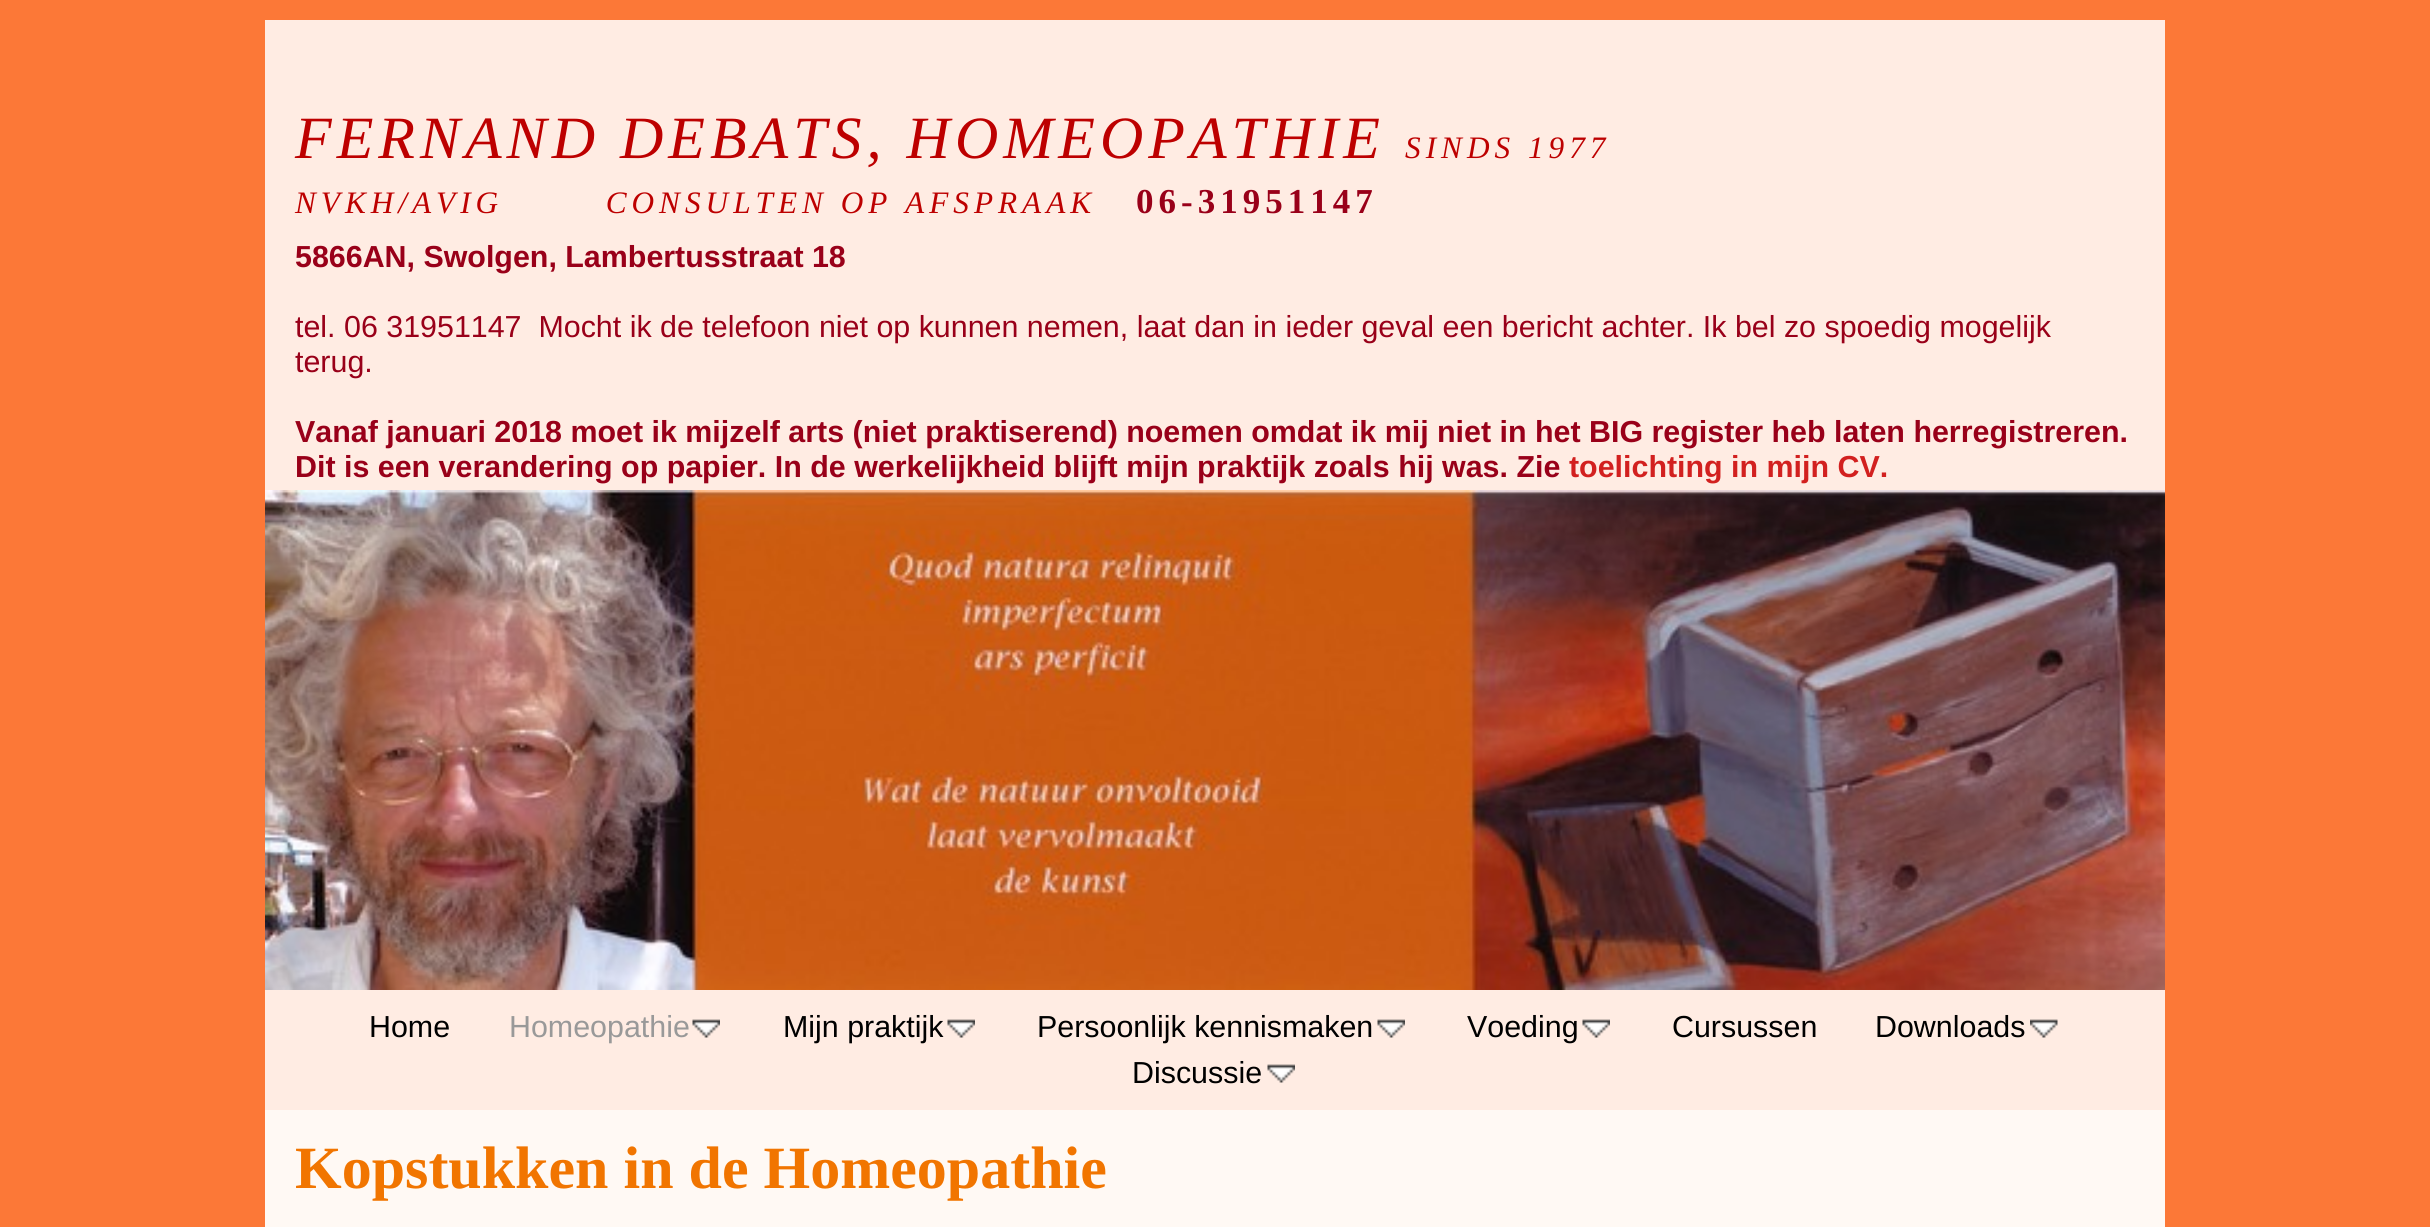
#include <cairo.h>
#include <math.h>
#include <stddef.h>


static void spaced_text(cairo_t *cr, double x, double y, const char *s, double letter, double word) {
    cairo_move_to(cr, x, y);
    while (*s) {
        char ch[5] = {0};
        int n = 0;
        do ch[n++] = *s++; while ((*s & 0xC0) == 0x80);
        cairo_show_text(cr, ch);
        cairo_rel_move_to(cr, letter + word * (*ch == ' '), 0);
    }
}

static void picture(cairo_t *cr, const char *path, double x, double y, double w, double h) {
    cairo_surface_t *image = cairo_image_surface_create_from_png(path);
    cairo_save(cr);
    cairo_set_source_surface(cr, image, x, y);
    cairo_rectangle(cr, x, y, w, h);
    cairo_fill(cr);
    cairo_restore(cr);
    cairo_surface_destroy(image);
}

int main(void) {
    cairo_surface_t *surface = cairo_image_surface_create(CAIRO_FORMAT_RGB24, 2430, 1227);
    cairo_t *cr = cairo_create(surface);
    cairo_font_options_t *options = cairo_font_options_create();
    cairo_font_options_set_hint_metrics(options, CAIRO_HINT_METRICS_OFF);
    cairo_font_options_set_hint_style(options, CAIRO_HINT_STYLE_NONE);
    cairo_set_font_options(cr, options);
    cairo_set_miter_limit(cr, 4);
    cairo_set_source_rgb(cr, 0.988, 0.471, 0.216);
    cairo_paint(cr);
    cairo_set_source_rgb(cr, 1, 0.973, 0.957);
    cairo_rectangle(cr, 265, 1110, 1900, 117);
    cairo_fill(cr);
    cairo_set_source_rgb(cr, 1, 0.925, 0.89);
    cairo_rectangle(cr, 265, 20, 1900, 1090);
    cairo_fill(cr);
    cairo_select_font_face(cr, "Liberation Serif", CAIRO_FONT_SLANT_ITALIC, CAIRO_FONT_WEIGHT_NORMAL);
    cairo_set_font_size(cr, 60);
    cairo_set_source_rgb(cr, 0.741, 0, 0);
    spaced_text(cr, 295, 158, "FERNAND DEBATS, HOMEOPATHIE", 5, 0);
    cairo_set_font_size(cr, 31.25);
    spaced_text(cr, 1405, 158, "SINDS 1977", 5, 0);
    spaced_text(cr, 295, 213, "NVKH/AVIG        CONSULTEN OP AFSPRAAK", 5, 0);
    cairo_select_font_face(cr, "Liberation Serif", CAIRO_FONT_SLANT_NORMAL, CAIRO_FONT_WEIGHT_BOLD);
    cairo_set_font_size(cr, 35);
    cairo_set_source_rgb(cr, 0.6, 0, 0.098);
    spaced_text(cr, 1136, 213, "06-31951147", 5, 0);
    cairo_select_font_face(cr, "Liberation Sans", CAIRO_FONT_SLANT_NORMAL, CAIRO_FONT_WEIGHT_BOLD);
    cairo_set_font_size(cr, 30.4);
    cairo_move_to(cr, 295, 267);
    cairo_show_text(cr, "5866AN, Swolgen, Lambertusstraat 18");
    cairo_select_font_face(cr, "Liberation Sans", CAIRO_FONT_SLANT_NORMAL, CAIRO_FONT_WEIGHT_NORMAL);
    cairo_move_to(cr, 295, 337);
    cairo_show_text(cr, "tel. 06 31951147  Mocht ik de telefoon niet op kunnen nemen, laat dan in ieder geval een bericht achter. Ik bel zo spoedig mogelijk");
    cairo_move_to(cr, 295, 372);
    cairo_show_text(cr, "terug.");
    cairo_select_font_face(cr, "Liberation Sans", CAIRO_FONT_SLANT_NORMAL, CAIRO_FONT_WEIGHT_BOLD);
    cairo_move_to(cr, 295, 442);
    cairo_show_text(cr, "Vanaf januari 2018 moet ik mijzelf arts (niet praktiserend) noemen omdat ik mij niet in het BIG register heb laten herregistreren.");
    cairo_move_to(cr, 295, 477);
    cairo_show_text(cr, "Dit is een verandering op papier. In de werkelijkheid blijft mijn praktijk zoals hij was. Zie");
    cairo_set_source_rgb(cr, 0.824, 0.125, 0.122);
    cairo_move_to(cr, 1569, 477);
    cairo_show_text(cr, "toelichting in mijn CV.");
    picture(cr, "img1.png", 265, 490, 1900, 500);
    cairo_select_font_face(cr, "Liberation Sans", CAIRO_FONT_SLANT_NORMAL, CAIRO_FONT_WEIGHT_NORMAL);
    cairo_set_source_rgb(cr, 0, 0, 0);
    cairo_move_to(cr, 369, 1037);
    cairo_show_text(cr, "Home");
    cairo_set_source_rgb(cr, 0.6, 0.6, 0.6);
    cairo_move_to(cr, 509, 1037);
    cairo_show_text(cr, "Homeopathie");
    picture(cr, "img2.png", 692, 1019, 28, 19);
    cairo_set_source_rgb(cr, 0, 0, 0);
    cairo_move_to(cr, 783, 1037);
    cairo_show_text(cr, "Mijn praktijk");
    picture(cr, "img3.png", 947, 1019, 28, 19);
    cairo_move_to(cr, 1037, 1037);
    cairo_show_text(cr, "Persoonlijk kennismaken");
    picture(cr, "img2.png", 1377, 1019, 28, 19);
    cairo_move_to(cr, 1467, 1037);
    cairo_show_text(cr, "Voeding");
    picture(cr, "img2.png", 1582, 1019, 28, 19);
    cairo_move_to(cr, 1672, 1037);
    cairo_show_text(cr, "Cursussen");
    cairo_move_to(cr, 1875, 1037);
    cairo_show_text(cr, "Downloads");
    picture(cr, "img4.png", 2030, 1019, 28, 19);
    cairo_move_to(cr, 1132, 1083);
    cairo_show_text(cr, "Discussie");
    picture(cr, "img2.png", 1267, 1064, 28, 19);
    cairo_select_font_face(cr, "Liberation Serif", CAIRO_FONT_SLANT_NORMAL, CAIRO_FONT_WEIGHT_BOLD);
    cairo_set_font_size(cr, 60);
    cairo_set_source_rgb(cr, 0.945, 0.459, 0);
    cairo_move_to(cr, 295, 1188);
    cairo_show_text(cr, "Kopstukken in de Homeopathie");
    cairo_surface_write_to_png(surface, "page.png");
    cairo_font_options_destroy(options);
    cairo_destroy(cr);
    cairo_surface_destroy(surface);
    return 0;
}
